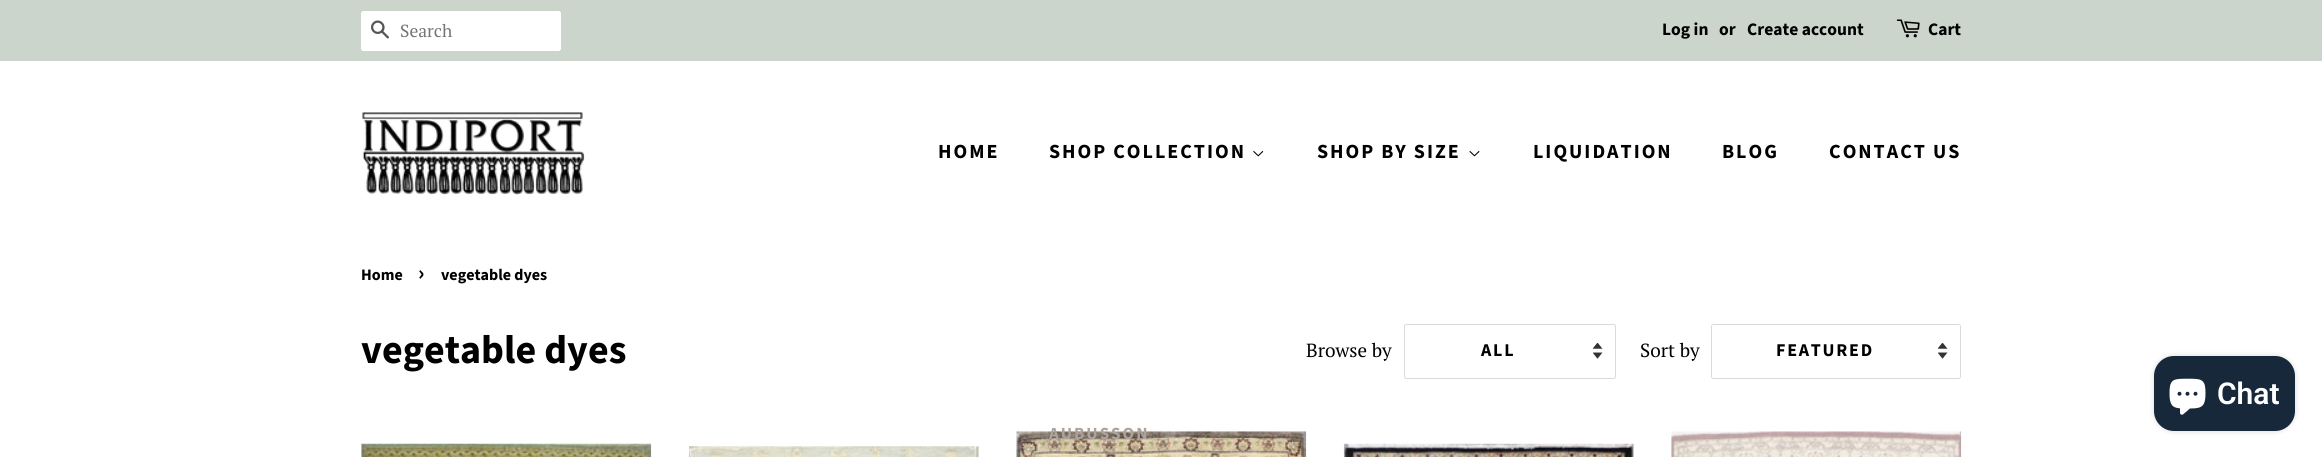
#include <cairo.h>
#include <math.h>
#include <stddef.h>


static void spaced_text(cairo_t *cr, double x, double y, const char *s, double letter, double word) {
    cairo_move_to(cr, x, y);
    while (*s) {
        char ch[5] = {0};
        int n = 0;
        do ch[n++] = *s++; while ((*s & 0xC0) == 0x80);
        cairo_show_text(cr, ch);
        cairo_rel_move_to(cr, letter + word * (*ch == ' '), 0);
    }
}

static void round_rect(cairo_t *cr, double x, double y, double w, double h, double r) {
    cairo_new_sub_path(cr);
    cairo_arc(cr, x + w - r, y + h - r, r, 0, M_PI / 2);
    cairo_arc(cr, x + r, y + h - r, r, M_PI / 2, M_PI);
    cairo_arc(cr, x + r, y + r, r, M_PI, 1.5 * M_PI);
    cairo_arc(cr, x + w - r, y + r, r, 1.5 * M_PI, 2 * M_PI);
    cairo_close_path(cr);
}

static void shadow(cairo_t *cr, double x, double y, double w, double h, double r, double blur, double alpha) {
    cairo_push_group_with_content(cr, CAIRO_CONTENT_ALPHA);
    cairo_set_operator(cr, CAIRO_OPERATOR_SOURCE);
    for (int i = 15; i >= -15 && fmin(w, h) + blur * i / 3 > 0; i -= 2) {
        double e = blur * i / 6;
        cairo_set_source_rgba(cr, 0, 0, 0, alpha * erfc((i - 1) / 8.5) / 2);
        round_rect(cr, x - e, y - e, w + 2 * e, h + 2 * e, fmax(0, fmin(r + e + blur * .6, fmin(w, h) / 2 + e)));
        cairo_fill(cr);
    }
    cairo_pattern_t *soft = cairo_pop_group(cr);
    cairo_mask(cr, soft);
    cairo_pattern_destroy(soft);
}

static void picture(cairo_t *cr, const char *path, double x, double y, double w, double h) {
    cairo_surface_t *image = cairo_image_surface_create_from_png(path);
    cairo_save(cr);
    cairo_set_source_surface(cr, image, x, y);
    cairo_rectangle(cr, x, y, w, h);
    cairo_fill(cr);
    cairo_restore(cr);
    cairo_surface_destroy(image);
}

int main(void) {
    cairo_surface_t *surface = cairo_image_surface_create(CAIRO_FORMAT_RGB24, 2322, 457);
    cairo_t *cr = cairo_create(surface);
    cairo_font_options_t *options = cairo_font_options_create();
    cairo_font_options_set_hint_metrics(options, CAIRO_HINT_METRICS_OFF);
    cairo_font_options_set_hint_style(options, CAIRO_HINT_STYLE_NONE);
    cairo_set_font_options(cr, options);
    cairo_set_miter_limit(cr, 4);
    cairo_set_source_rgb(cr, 1, 1, 1);
    cairo_paint(cr);
    cairo_set_source_rgb(cr, 0.796, 0.835, 0.8);
    cairo_rectangle(cr, 0, 0, 2322, 61);
    cairo_fill(cr);
    cairo_set_source_rgb(cr, 1, 1, 1);
    round_rect(cr, 361, 11, 200, 40, 2.5);
    cairo_fill(cr);
    picture(cr, "img1.png", 371, 20, 18, 19);
    cairo_select_font_face(cr, "PT Serif", CAIRO_FONT_SLANT_NORMAL, CAIRO_FONT_WEIGHT_NORMAL);
    cairo_set_font_size(cr, 17.5);
    cairo_set_source_rgb(cr, 0.459, 0.459, 0.459);
    cairo_move_to(cr, 400, 37);
    cairo_show_text(cr, "Search");
    cairo_select_font_face(cr, "Source Sans Pro", CAIRO_FONT_SLANT_NORMAL, CAIRO_FONT_WEIGHT_BOLD);
    cairo_set_source_rgb(cr, 0, 0, 0);
    cairo_move_to(cr, 1662, 35);
    cairo_show_text(cr, "Log in");
    cairo_move_to(cr, 1719, 35);
    cairo_show_text(cr, "or");
    cairo_move_to(cr, 1747, 35);
    cairo_show_text(cr, "Create account");
    picture(cr, "img2.png", 1896, 19, 24, 19);
    cairo_move_to(cr, 1928, 35);
    cairo_show_text(cr, "Cart");
    picture(cr, "img3.png", 362, 112, 223, 83);
    cairo_set_font_size(cr, 20);
    spaced_text(cr, 938, 158, "HOME", 2, 0);
    spaced_text(cr, 1049, 158, "SHOP COLLECTION", 2, 0);
    picture(cr, "img4.png", 1253, 150, 11, 7);
    picture(cr, "img9.png", 1016, 431, 291, 26);
    cairo_set_font_size(cr, 17);
    cairo_set_source_rgb(cr, 0.675, 0.639, 0.612);
    spaced_text(cr, 1049, 439, "AUBUSSON", 2, 0);
    cairo_set_font_size(cr, 20);
    cairo_set_source_rgb(cr, 0, 0, 0);
    spaced_text(cr, 1317, 158, "SHOP BY SIZE", 2, 0);
    picture(cr, "img5.png", 1469, 150, 11, 7);
    spaced_text(cr, 1533, 158, "LIQUIDATION", 2, 0);
    spaced_text(cr, 1722, 158, "BLOG", 2, 0);
    spaced_text(cr, 1829, 158, "CONTACT US", 2, 0);
    cairo_set_font_size(cr, 16);
    cairo_move_to(cr, 361, 280);
    cairo_show_text(cr, "Home");
    cairo_set_font_size(cr, 22);
    cairo_move_to(cr, 418, 280);
    cairo_show_text(cr, "›");
    cairo_set_font_size(cr, 16);
    cairo_move_to(cr, 441, 280);
    cairo_show_text(cr, "vegetable dyes");
    cairo_set_font_size(cr, 40);
    cairo_move_to(cr, 361, 363);
    cairo_show_text(cr, "vegetable dyes");
    cairo_select_font_face(cr, "PT Serif", CAIRO_FONT_SLANT_NORMAL, CAIRO_FONT_WEIGHT_NORMAL);
    cairo_set_font_size(cr, 19);
    cairo_move_to(cr, 1306, 357);
    cairo_show_text(cr, "Browse by");
    picture(cr, "img6.png", 1593, 343, 10, 16);
    round_rect(cr, 1404.5, 324.5, 211, 54, 2);
    cairo_set_source_rgb(cr, 0.851, 0.851, 0.851);
    cairo_set_line_width(cr, 1);
    cairo_stroke(cr);
    cairo_select_font_face(cr, "Source Sans Pro", CAIRO_FONT_SLANT_NORMAL, CAIRO_FONT_WEIGHT_BOLD);
    cairo_set_font_size(cr, 18);
    cairo_set_source_rgb(cr, 0, 0, 0);
    spaced_text(cr, 1481, 356, "ALL", 1.75, 0);
    cairo_select_font_face(cr, "PT Serif", CAIRO_FONT_SLANT_NORMAL, CAIRO_FONT_WEIGHT_NORMAL);
    cairo_set_font_size(cr, 19);
    cairo_move_to(cr, 1640, 357);
    cairo_show_text(cr, "Sort by");
    picture(cr, "img6.png", 1938, 343, 10, 16);
    round_rect(cr, 1711.5, 324.5, 249, 54, 2);
    cairo_set_source_rgb(cr, 0.851, 0.851, 0.851);
    cairo_stroke(cr);
    cairo_select_font_face(cr, "Source Sans Pro", CAIRO_FONT_SLANT_NORMAL, CAIRO_FONT_WEIGHT_BOLD);
    cairo_set_font_size(cr, 18);
    cairo_set_source_rgb(cr, 0, 0, 0);
    spaced_text(cr, 1776, 356, "FEATURED", 1.75, 0);
    picture(cr, "img7.png", 361, 443, 291, 14);
    picture(cr, "img8.png", 689, 446, 290, 11);
    picture(cr, "img10.png", 1343, 443, 291, 14);
    picture(cr, "img11.png", 1671, 431, 291, 26);
    cairo_set_source_rgb(cr, 0, 0, 0);
    shadow(cr, 2154, 356, 141, 75, 20, 3, 0.15);
    cairo_set_source_rgb(cr, 0.094, 0.157, 0.231);
    round_rect(cr, 2154, 356, 141, 75, 20);
    cairo_fill(cr);
    picture(cr, "img12.png", 2169, 378, 37, 37);
    cairo_select_font_face(cr, "Roboto SemiBold", CAIRO_FONT_SLANT_NORMAL, CAIRO_FONT_WEIGHT_NORMAL);
    cairo_set_font_size(cr, 30);
    cairo_set_source_rgb(cr, 1, 1, 1);
    cairo_move_to(cr, 2217, 404);
    cairo_show_text(cr, "Chat");
    cairo_surface_write_to_png(surface, "page.png");
    cairo_font_options_destroy(options);
    cairo_destroy(cr);
    cairo_surface_destroy(surface);
    return 0;
}
